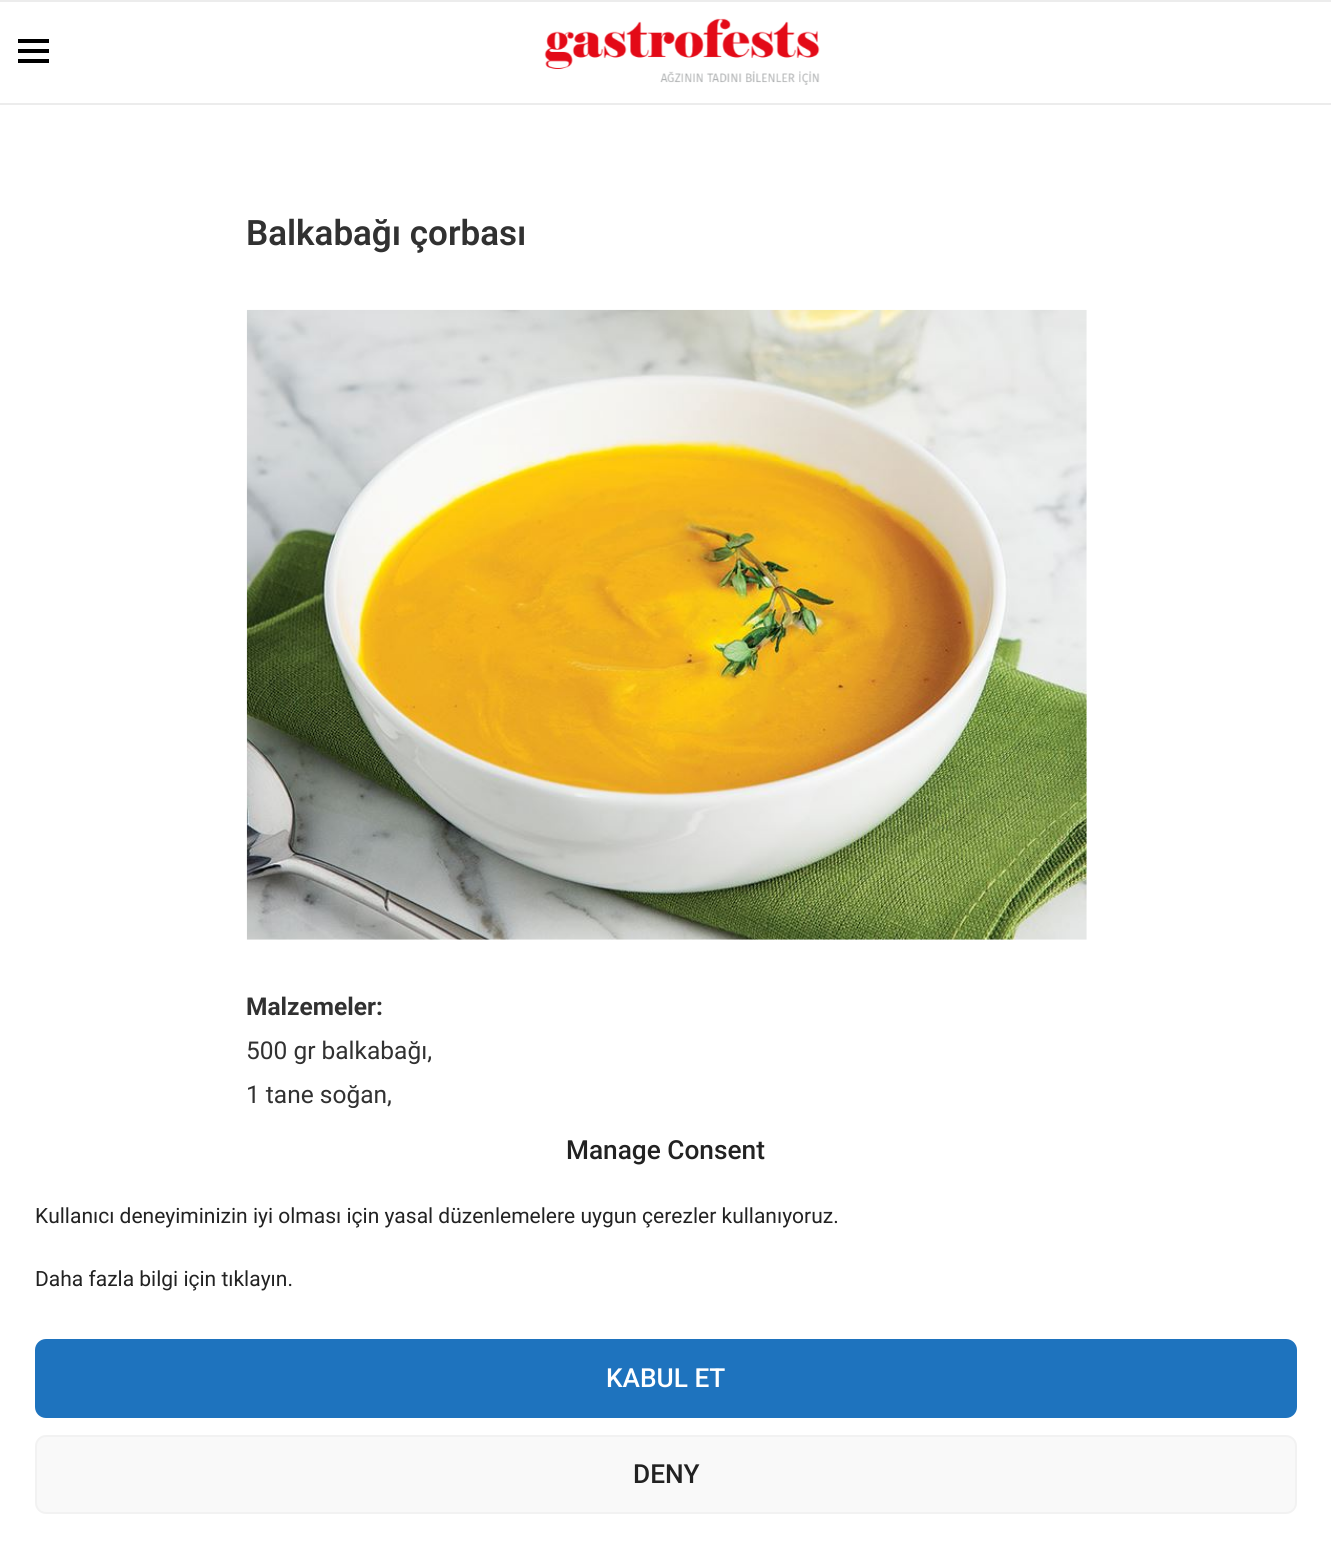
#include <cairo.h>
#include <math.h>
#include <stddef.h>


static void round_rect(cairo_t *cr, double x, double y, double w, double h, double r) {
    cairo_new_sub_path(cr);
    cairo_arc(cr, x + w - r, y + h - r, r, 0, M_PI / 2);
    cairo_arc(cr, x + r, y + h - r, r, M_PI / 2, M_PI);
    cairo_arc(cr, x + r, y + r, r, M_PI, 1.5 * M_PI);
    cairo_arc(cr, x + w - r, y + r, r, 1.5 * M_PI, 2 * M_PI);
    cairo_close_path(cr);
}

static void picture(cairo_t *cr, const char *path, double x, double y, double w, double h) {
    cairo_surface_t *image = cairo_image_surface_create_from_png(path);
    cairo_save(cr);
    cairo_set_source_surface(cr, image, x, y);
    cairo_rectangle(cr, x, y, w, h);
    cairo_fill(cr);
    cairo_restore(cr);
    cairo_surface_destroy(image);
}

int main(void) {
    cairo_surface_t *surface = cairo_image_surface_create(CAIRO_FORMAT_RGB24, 1331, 1557);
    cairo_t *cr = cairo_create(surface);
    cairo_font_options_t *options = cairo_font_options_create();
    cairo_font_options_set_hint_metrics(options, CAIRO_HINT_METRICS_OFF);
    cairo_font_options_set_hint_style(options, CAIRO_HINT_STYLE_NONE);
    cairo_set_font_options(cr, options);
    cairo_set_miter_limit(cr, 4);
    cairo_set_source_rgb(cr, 1, 1, 1);
    cairo_paint(cr);
    cairo_set_source_rgb(cr, 0.925, 0.925, 0.925);
    cairo_rectangle(cr, 0, 0, 1331, 2);
    cairo_fill(cr);
    cairo_rectangle(cr, 0, 103, 1331, 2);
    cairo_fill(cr);
    cairo_set_source_rgb(cr, 0, 0, 0);
    cairo_rectangle(cr, 18, 39, 31, 4);
    cairo_fill(cr);
    cairo_rectangle(cr, 18, 49, 31, 4);
    cairo_fill(cr);
    cairo_rectangle(cr, 18, 59, 31, 4);
    cairo_fill(cr);
    picture(cr, "img1.png", 544, 18, 276, 67);
    cairo_select_font_face(cr, "Roboto SemiBold", CAIRO_FONT_SLANT_NORMAL, CAIRO_FONT_WEIGHT_NORMAL);
    cairo_set_font_size(cr, 35);
    cairo_set_source_rgb(cr, 0.192, 0.192, 0.192);
    cairo_move_to(cr, 246, 245);
    cairo_show_text(cr, "Balkabağı çorbası");
    picture(cr, "img2.png", 246, 309, 841, 631);
    cairo_select_font_face(cr, "Roboto", CAIRO_FONT_SLANT_NORMAL, CAIRO_FONT_WEIGHT_BOLD);
    cairo_set_font_size(cr, 24.5);
    cairo_move_to(cr, 246, 1015);
    cairo_show_text(cr, "Malzemeler:");
    cairo_select_font_face(cr, "Roboto", CAIRO_FONT_SLANT_NORMAL, CAIRO_FONT_WEIGHT_NORMAL);
    cairo_move_to(cr, 246, 1059);
    cairo_show_text(cr, "500 gr balkabağı,");
    cairo_move_to(cr, 246, 1103);
    cairo_show_text(cr, "1 tane soğan,");
    cairo_set_source_rgb(cr, 1, 1, 1);
    round_rect(cr, 0, 1108, 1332, 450, 21);
    cairo_fill(cr);
    cairo_select_font_face(cr, "Roboto Medium", CAIRO_FONT_SLANT_NORMAL, CAIRO_FONT_WEIGHT_NORMAL);
    cairo_set_font_size(cr, 26.25);
    cairo_set_source_rgb(cr, 0.133, 0.133, 0.133);
    cairo_move_to(cr, 566, 1159);
    cairo_show_text(cr, "Manage Consent");
    cairo_select_font_face(cr, "Roboto", CAIRO_FONT_SLANT_NORMAL, CAIRO_FONT_WEIGHT_NORMAL);
    cairo_set_font_size(cr, 21);
    cairo_move_to(cr, 35, 1223);
    cairo_show_text(cr, "Kullanıcı deneyiminizin iyi olması için yasal düzenlemelere uygun çerezler kullanıyoruz.");
    cairo_move_to(cr, 35, 1286);
    cairo_show_text(cr, "Daha fazla bilgi için tıklayın.");
    cairo_set_source_rgb(cr, 0.118, 0.451, 0.745);
    round_rect(cr, 36, 1340, 1260, 77, 10);
    cairo_fill_preserve(cr);
    cairo_stroke(cr);
    cairo_select_font_face(cr, "Roboto Medium", CAIRO_FONT_SLANT_NORMAL, CAIRO_FONT_WEIGHT_NORMAL);
    cairo_set_font_size(cr, 26.25);
    cairo_set_source_rgb(cr, 1, 1, 1);
    cairo_move_to(cr, 606, 1387);
    cairo_show_text(cr, "KABUL ET");
    cairo_set_source_rgb(cr, 0.976, 0.976, 0.976);
    round_rect(cr, 36, 1436, 1260, 77, 10);
    cairo_fill_preserve(cr);
    cairo_set_source_rgb(cr, 0.949, 0.949, 0.949);
    cairo_stroke(cr);
    cairo_set_source_rgb(cr, 0.133, 0.133, 0.133);
    cairo_move_to(cr, 633, 1483);
    cairo_show_text(cr, "DENY");
    cairo_surface_write_to_png(surface, "page.png");
    cairo_font_options_destroy(options);
    cairo_destroy(cr);
    cairo_surface_destroy(surface);
    return 0;
}
